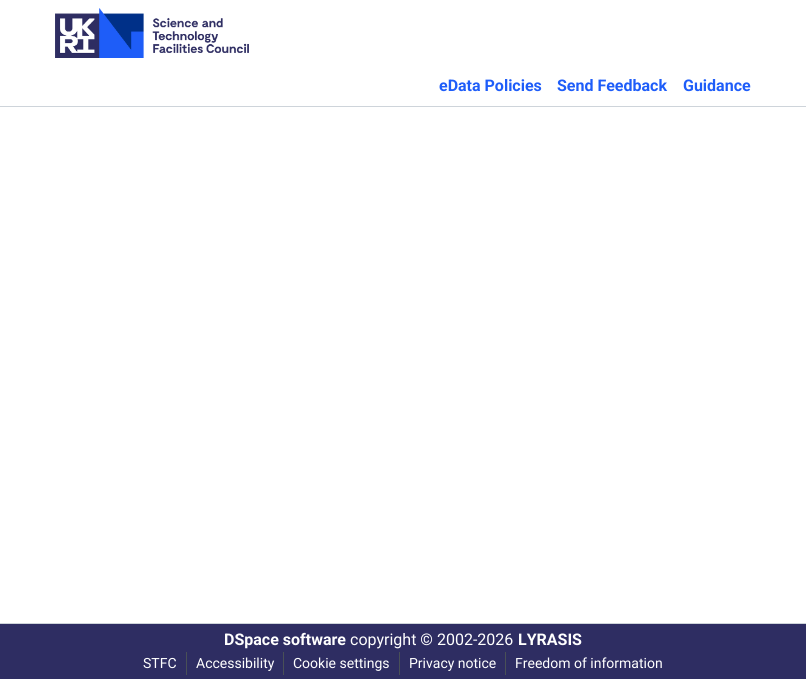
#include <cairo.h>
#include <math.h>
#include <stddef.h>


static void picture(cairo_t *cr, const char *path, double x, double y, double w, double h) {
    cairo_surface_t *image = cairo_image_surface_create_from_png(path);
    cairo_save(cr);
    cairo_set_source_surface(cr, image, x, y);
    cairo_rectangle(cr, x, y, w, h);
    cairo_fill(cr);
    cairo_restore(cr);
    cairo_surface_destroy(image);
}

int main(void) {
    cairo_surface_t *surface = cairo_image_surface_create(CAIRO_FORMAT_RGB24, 806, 679);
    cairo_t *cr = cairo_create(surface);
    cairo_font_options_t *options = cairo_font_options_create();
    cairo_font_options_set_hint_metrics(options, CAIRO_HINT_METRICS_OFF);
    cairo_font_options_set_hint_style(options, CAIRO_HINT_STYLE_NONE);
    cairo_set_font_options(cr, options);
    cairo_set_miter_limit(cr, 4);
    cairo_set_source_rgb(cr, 1, 1, 1);
    cairo_paint(cr);
    cairo_set_source_rgb(cr, 0.808, 0.831, 0.855);
    cairo_rectangle(cr, 0, 106, 806, 1);
    cairo_fill(cr);
    picture(cr, "img1.png", 55, 8, 194, 50);
    cairo_select_font_face(cr, "Roboto", CAIRO_FONT_SLANT_NORMAL, CAIRO_FONT_WEIGHT_BOLD);
    cairo_set_font_size(cr, 16);
    cairo_set_source_rgb(cr, 0.118, 0.365, 0.973);
    cairo_move_to(cr, 439, 91);
    cairo_show_text(cr, "eData Policies");
    cairo_move_to(cr, 557, 91);
    cairo_show_text(cr, "Send Feedback");
    cairo_move_to(cr, 683, 91);
    cairo_show_text(cr, "Guidance");
    cairo_set_source_rgb(cr, 0.18, 0.176, 0.384);
    cairo_rectangle(cr, 0, 624, 806, 55);
    cairo_fill(cr);
    cairo_set_source_rgb(cr, 0.808, 0.831, 0.855);
    cairo_rectangle(cr, 0, 623, 806, 1);
    cairo_fill(cr);
    cairo_set_source_rgb(cr, 1, 1, 1);
    cairo_move_to(cr, 224, 645);
    cairo_show_text(cr, "DSpace software");
    cairo_select_font_face(cr, "Roboto", CAIRO_FONT_SLANT_NORMAL, CAIRO_FONT_WEIGHT_NORMAL);
    cairo_move_to(cr, 350, 645);
    cairo_show_text(cr, "copyright © 2002-2026");
    cairo_select_font_face(cr, "Roboto", CAIRO_FONT_SLANT_NORMAL, CAIRO_FONT_WEIGHT_BOLD);
    cairo_move_to(cr, 518, 645);
    cairo_show_text(cr, "LYRASIS");
    cairo_select_font_face(cr, "Roboto", CAIRO_FONT_SLANT_NORMAL, CAIRO_FONT_WEIGHT_NORMAL);
    cairo_set_font_size(cr, 14);
    cairo_move_to(cr, 143, 668);
    cairo_show_text(cr, "STFC");
    cairo_set_source_rgb(cr, 0.286, 0.314, 0.341);
    cairo_rectangle(cr, 186, 652, 1, 23);
    cairo_fill(cr);
    cairo_set_source_rgb(cr, 1, 1, 1);
    cairo_move_to(cr, 196, 668);
    cairo_show_text(cr, "Accessibility");
    cairo_set_source_rgb(cr, 0.286, 0.314, 0.341);
    cairo_rectangle(cr, 283, 652, 1, 23);
    cairo_fill(cr);
    cairo_set_source_rgb(cr, 1, 1, 1);
    cairo_move_to(cr, 293, 668);
    cairo_show_text(cr, "Cookie settings");
    cairo_set_source_rgb(cr, 0.286, 0.314, 0.341);
    cairo_rectangle(cr, 399, 652, 1, 23);
    cairo_fill(cr);
    cairo_set_source_rgb(cr, 1, 1, 1);
    cairo_move_to(cr, 409, 668);
    cairo_show_text(cr, "Privacy notice");
    cairo_set_source_rgb(cr, 0.286, 0.314, 0.341);
    cairo_rectangle(cr, 505, 652, 1, 23);
    cairo_fill(cr);
    cairo_set_source_rgb(cr, 1, 1, 1);
    cairo_move_to(cr, 515, 668);
    cairo_show_text(cr, "Freedom of information");
    cairo_surface_write_to_png(surface, "page.png");
    cairo_font_options_destroy(options);
    cairo_destroy(cr);
    cairo_surface_destroy(surface);
    return 0;
}
